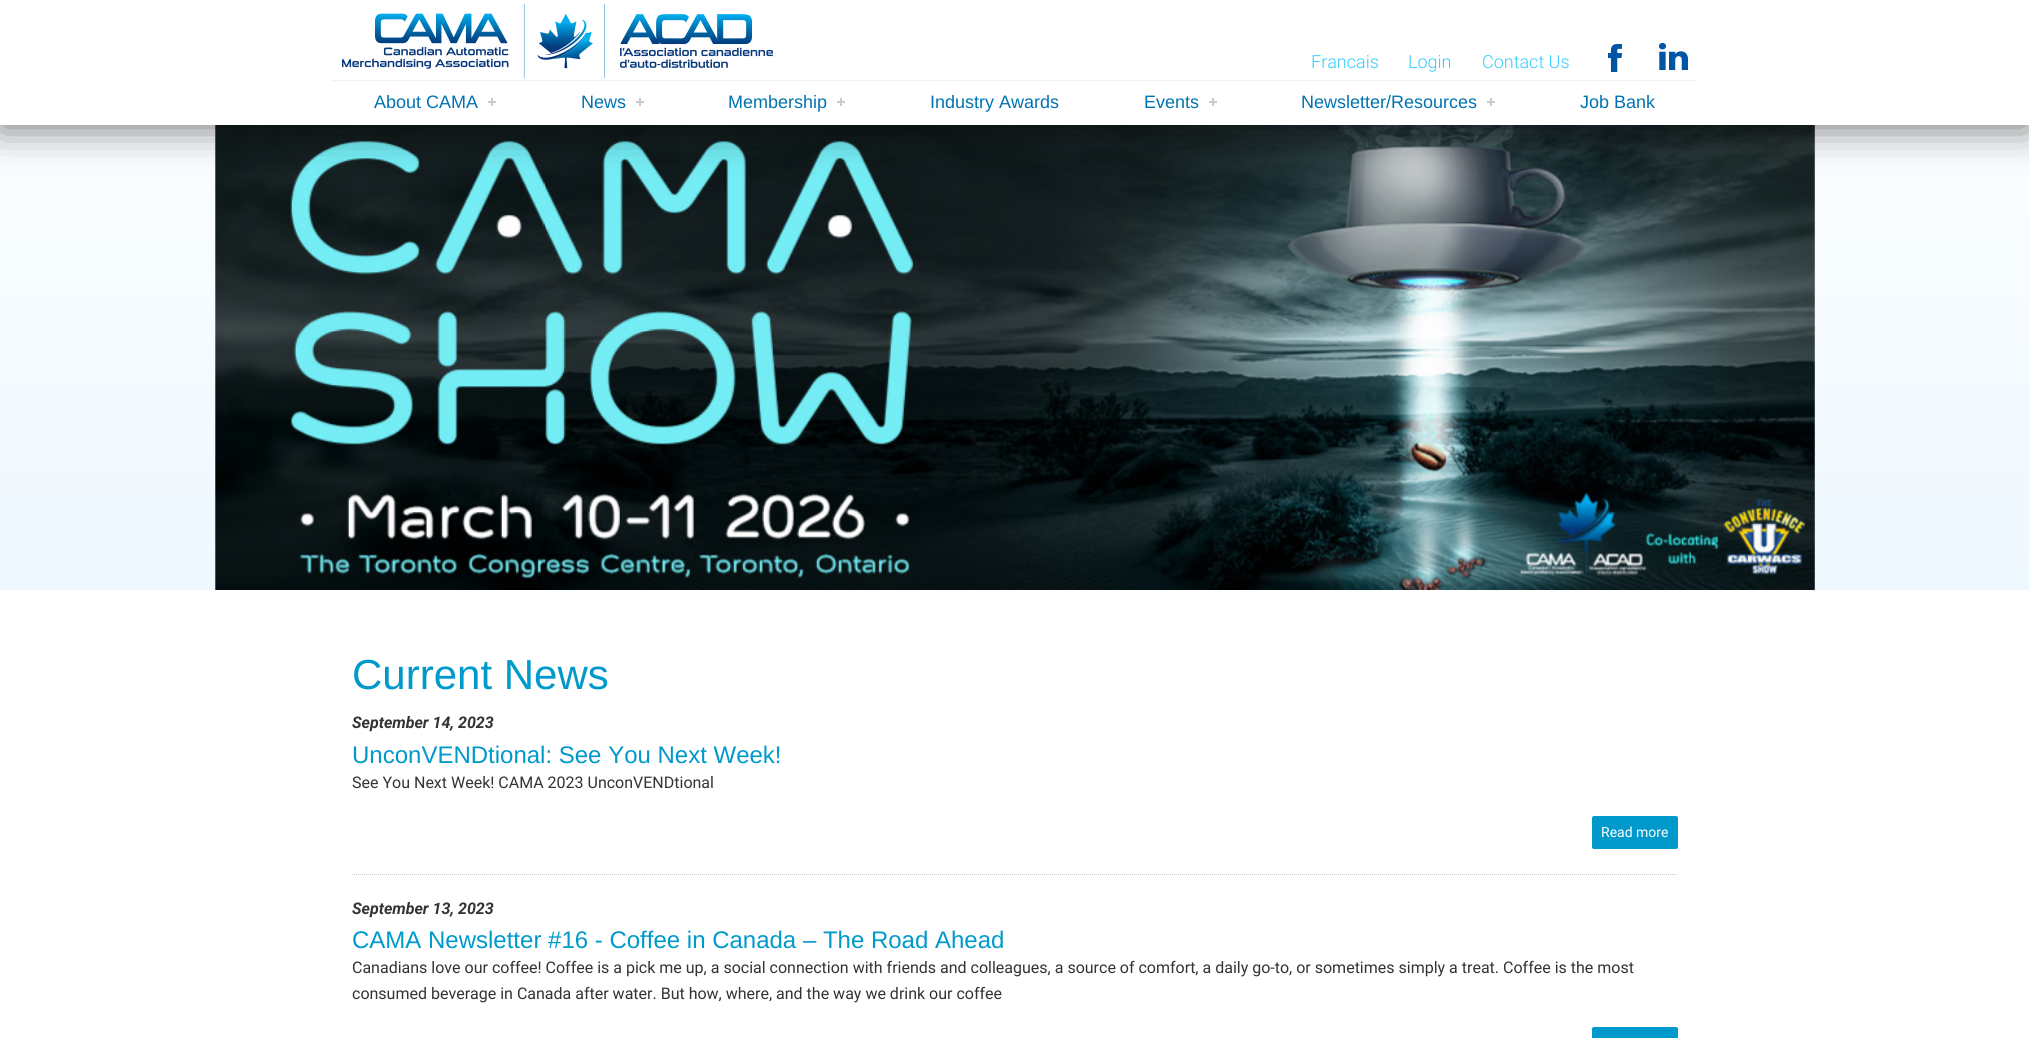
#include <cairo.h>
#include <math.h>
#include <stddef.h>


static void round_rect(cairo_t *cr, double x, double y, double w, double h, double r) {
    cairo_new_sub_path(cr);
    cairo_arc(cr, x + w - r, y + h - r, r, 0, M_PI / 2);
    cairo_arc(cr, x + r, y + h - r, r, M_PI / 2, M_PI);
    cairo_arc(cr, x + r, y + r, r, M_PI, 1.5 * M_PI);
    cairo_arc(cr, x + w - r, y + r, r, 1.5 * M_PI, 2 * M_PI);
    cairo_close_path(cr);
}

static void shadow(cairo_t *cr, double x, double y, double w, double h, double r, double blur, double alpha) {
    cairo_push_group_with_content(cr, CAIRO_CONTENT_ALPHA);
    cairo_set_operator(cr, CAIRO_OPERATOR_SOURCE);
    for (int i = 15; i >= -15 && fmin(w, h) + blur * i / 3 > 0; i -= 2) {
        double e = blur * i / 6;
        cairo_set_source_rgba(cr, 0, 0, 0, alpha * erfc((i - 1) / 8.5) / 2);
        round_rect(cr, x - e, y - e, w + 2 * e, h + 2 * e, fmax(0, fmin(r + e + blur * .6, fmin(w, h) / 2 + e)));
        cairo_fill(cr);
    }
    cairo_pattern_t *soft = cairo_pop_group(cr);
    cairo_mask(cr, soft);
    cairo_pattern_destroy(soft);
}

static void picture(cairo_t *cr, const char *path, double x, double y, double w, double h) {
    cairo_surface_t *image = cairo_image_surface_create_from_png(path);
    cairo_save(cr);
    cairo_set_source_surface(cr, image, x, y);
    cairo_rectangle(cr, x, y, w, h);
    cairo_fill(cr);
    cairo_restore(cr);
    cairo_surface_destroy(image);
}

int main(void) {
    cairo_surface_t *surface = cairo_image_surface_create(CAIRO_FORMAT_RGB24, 2029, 1038);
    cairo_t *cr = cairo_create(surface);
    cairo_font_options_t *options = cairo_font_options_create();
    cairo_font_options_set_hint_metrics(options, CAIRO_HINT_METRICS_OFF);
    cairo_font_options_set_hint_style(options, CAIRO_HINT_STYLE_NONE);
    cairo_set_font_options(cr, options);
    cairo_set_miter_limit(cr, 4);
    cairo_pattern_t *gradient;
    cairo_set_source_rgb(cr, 1, 1, 1);
    cairo_paint(cr);
    gradient = cairo_pattern_create_linear(1015, 0, 1015, 590);
    cairo_pattern_add_color_stop_rgba(gradient, 0, 0.996, 1, 1, 1);
    cairo_pattern_add_color_stop_rgba(gradient, 1, 0.933, 0.973, 1, 1);
    cairo_set_source(cr, gradient);
    cairo_pattern_destroy(gradient);
    cairo_rectangle(cr, 0, 125, 2029, 465);
    cairo_fill(cr);
    picture(cr, "img5.png", 215, 125, 1600, 465);
    cairo_set_source_rgb(cr, 0, 0, 0);
    shadow(cr, 0, 1, 2029, 125, 0, 20.5, 0.6);
    cairo_set_source_rgb(cr, 1, 1, 1);
    cairo_rectangle(cr, 0, 0, 2029, 125);
    cairo_fill(cr);
    picture(cr, "img1.png", 342, 4, 431, 74);
    cairo_select_font_face(cr, "Roboto Light", CAIRO_FONT_SLANT_NORMAL, CAIRO_FONT_WEIGHT_NORMAL);
    cairo_set_font_size(cr, 18);
    cairo_set_source_rgb(cr, 0.2, 0.8, 1);
    cairo_move_to(cr, 1311, 68);
    cairo_show_text(cr, "Francais");
    cairo_move_to(cr, 1408, 68);
    cairo_show_text(cr, "Login");
    cairo_move_to(cr, 1482, 68);
    cairo_show_text(cr, "Contact Us");
    picture(cr, "img2.png", 1608, 44, 14, 28);
    picture(cr, "img3.png", 1659, 43, 29, 27);
    cairo_set_source_rgb(cr, 0.949, 0.949, 0.949);
    cairo_rectangle(cr, 332, 80, 1366, 1);
    cairo_fill(cr);
    cairo_select_font_face(cr, "Liberation Sans", CAIRO_FONT_SLANT_NORMAL, CAIRO_FONT_WEIGHT_NORMAL);
    cairo_set_source_rgb(cr, 0, 0.451, 0.698);
    cairo_move_to(cr, 374, 108);
    cairo_show_text(cr, "About CAMA");
    picture(cr, "img4.png", 488, 98, 8, 8);
    cairo_move_to(cr, 581, 108);
    cairo_show_text(cr, "News");
    picture(cr, "img4.png", 636, 98, 8, 8);
    cairo_move_to(cr, 728, 108);
    cairo_show_text(cr, "Membership");
    picture(cr, "img4.png", 837, 98, 8, 8);
    cairo_move_to(cr, 930, 108);
    cairo_show_text(cr, "Industry Awards");
    cairo_move_to(cr, 1144, 108);
    cairo_show_text(cr, "Events");
    picture(cr, "img4.png", 1209, 98, 8, 8);
    cairo_move_to(cr, 1301, 108);
    cairo_show_text(cr, "Newsletter/Resources");
    picture(cr, "img4.png", 1487, 98, 8, 8);
    cairo_move_to(cr, 1580, 108);
    cairo_show_text(cr, "Job Bank");
    cairo_set_font_size(cr, 42);
    cairo_set_source_rgb(cr, 0, 0.6, 0.8);
    cairo_move_to(cr, 352, 689);
    cairo_show_text(cr, "Current News");
    cairo_select_font_face(cr, "Roboto", CAIRO_FONT_SLANT_ITALIC, CAIRO_FONT_WEIGHT_BOLD);
    cairo_set_font_size(cr, 16);
    cairo_set_source_rgb(cr, 0.2, 0.2, 0.2);
    cairo_move_to(cr, 352, 728);
    cairo_show_text(cr, "September 14, 2023");
    cairo_select_font_face(cr, "Liberation Sans", CAIRO_FONT_SLANT_NORMAL, CAIRO_FONT_WEIGHT_NORMAL);
    cairo_set_font_size(cr, 24);
    cairo_set_source_rgb(cr, 0, 0.6, 0.8);
    cairo_move_to(cr, 352, 763);
    cairo_show_text(cr, "UnconVENDtional: See You Next Week!");
    cairo_select_font_face(cr, "Roboto", CAIRO_FONT_SLANT_NORMAL, CAIRO_FONT_WEIGHT_NORMAL);
    cairo_set_font_size(cr, 16);
    cairo_set_source_rgb(cr, 0.2, 0.2, 0.2);
    cairo_move_to(cr, 352, 788);
    cairo_show_text(cr, "See You Next Week! CAMA 2023 UnconVENDtional");
    cairo_set_source_rgb(cr, 0, 0.6, 0.8);
    round_rect(cr, 1592, 816, 86, 33, 2);
    cairo_fill(cr);
    cairo_set_font_size(cr, 14);
    cairo_set_source_rgb(cr, 1, 1, 1);
    cairo_move_to(cr, 1601, 837);
    cairo_show_text(cr, "Read more");
    cairo_new_path(cr);
    cairo_move_to(cr, 352, 874.5);
    cairo_line_to(cr, 1678, 874.5);
    cairo_set_source_rgb(cr, 0.8, 0.8, 0.8);
    cairo_set_line_width(cr, 1);
    cairo_set_dash(cr, (double[]){1, 1}, 2, 0);
    cairo_stroke(cr);
    cairo_select_font_face(cr, "Roboto", CAIRO_FONT_SLANT_ITALIC, CAIRO_FONT_WEIGHT_BOLD);
    cairo_set_font_size(cr, 16);
    cairo_set_source_rgb(cr, 0.2, 0.2, 0.2);
    cairo_move_to(cr, 352, 914);
    cairo_show_text(cr, "September 13, 2023");
    cairo_select_font_face(cr, "Liberation Sans", CAIRO_FONT_SLANT_NORMAL, CAIRO_FONT_WEIGHT_NORMAL);
    cairo_set_font_size(cr, 24);
    cairo_set_source_rgb(cr, 0, 0.6, 0.8);
    cairo_move_to(cr, 352, 948);
    cairo_show_text(cr, "CAMA Newsletter #16 - Coffee in Canada – The Road Ahead");
    cairo_select_font_face(cr, "Roboto", CAIRO_FONT_SLANT_NORMAL, CAIRO_FONT_WEIGHT_NORMAL);
    cairo_set_font_size(cr, 16);
    cairo_set_source_rgb(cr, 0.2, 0.2, 0.2);
    cairo_move_to(cr, 352, 973);
    cairo_show_text(cr, "Canadians love our coffee! Coffee is a pick me up, a social connection with friends and colleagues, a source of comfort, a daily go-to, or sometimes simply a treat. Coffee is the most");
    cairo_move_to(cr, 352, 999);
    cairo_show_text(cr, "consumed beverage in Canada after water. But how, where, and the way we drink our coffee");
    cairo_set_source_rgb(cr, 0, 0.6, 0.8);
    round_rect(cr, 1592, 1027, 86, 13, 2);
    cairo_fill(cr);
    cairo_surface_write_to_png(surface, "page.png");
    cairo_font_options_destroy(options);
    cairo_destroy(cr);
    cairo_surface_destroy(surface);
    return 0;
}
